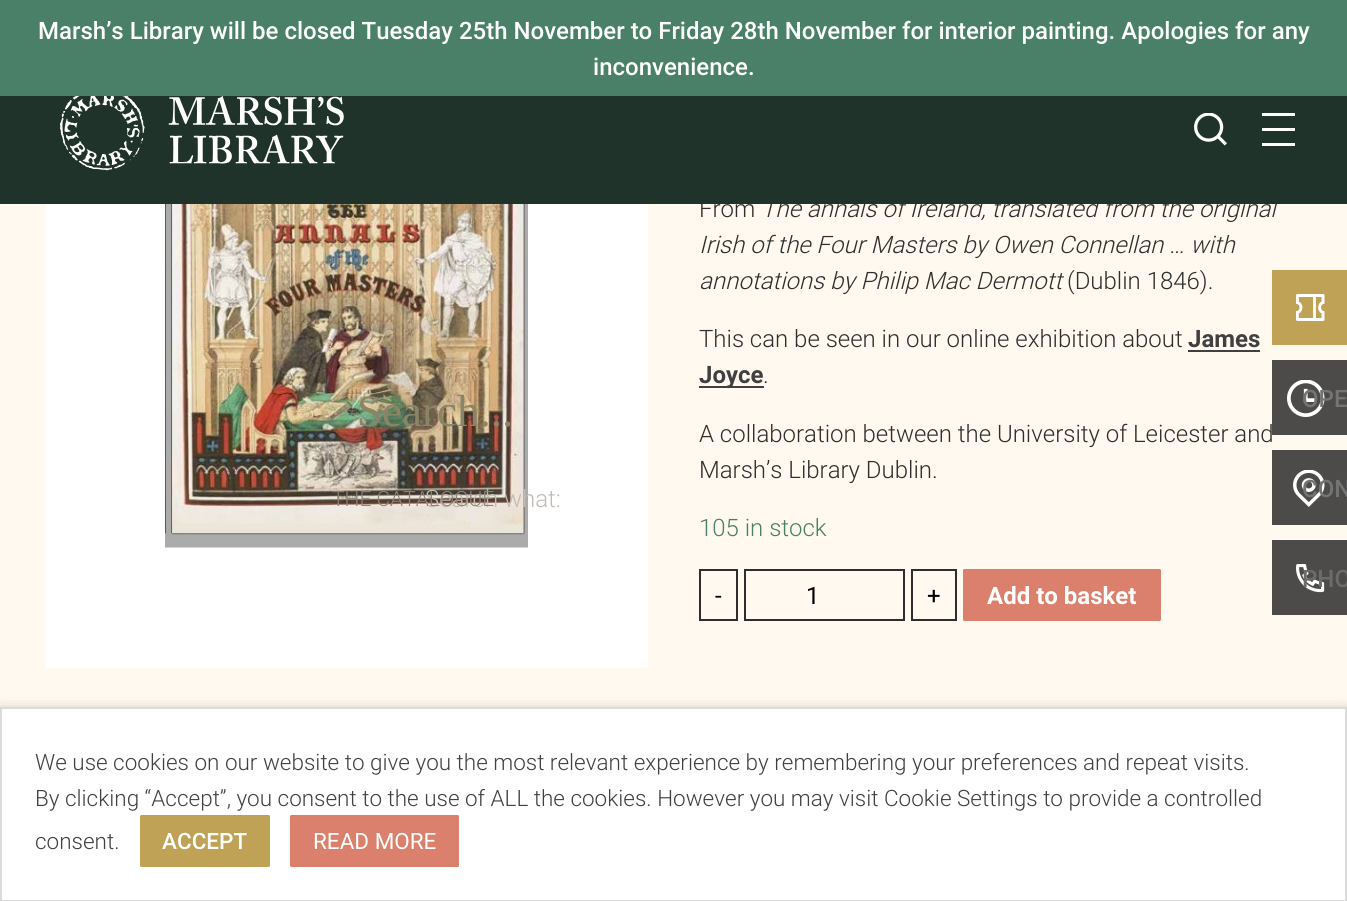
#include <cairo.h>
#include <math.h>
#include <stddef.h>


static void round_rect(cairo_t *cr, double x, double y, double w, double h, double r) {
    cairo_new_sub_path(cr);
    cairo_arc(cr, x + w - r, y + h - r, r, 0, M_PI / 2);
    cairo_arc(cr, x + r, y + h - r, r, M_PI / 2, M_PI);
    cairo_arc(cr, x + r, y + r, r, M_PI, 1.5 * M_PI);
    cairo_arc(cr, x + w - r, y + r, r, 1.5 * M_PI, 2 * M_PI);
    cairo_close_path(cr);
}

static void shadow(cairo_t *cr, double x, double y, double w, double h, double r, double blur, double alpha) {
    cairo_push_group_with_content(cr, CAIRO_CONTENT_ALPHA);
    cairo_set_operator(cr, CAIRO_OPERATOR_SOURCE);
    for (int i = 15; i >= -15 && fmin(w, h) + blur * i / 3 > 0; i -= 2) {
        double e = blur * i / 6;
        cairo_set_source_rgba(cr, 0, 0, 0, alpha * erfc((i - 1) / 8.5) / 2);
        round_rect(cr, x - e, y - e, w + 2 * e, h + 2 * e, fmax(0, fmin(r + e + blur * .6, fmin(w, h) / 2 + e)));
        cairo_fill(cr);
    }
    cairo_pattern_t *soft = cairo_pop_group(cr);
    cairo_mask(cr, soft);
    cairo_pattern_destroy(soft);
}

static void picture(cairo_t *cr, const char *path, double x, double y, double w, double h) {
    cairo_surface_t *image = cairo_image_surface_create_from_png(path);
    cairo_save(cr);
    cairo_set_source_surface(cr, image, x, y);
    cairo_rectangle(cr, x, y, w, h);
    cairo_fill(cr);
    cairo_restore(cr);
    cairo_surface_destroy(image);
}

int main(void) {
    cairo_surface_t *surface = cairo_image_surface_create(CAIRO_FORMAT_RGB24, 1347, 901);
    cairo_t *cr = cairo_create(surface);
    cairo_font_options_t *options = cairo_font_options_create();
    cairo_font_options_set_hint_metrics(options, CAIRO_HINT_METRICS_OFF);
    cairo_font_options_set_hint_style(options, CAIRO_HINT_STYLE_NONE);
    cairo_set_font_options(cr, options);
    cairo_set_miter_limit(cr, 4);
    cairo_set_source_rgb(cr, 1, 0.973, 0.937);
    cairo_paint(cr);
    cairo_set_source_rgb(cr, 0.286, 0.502, 0.404);
    cairo_rectangle(cr, 0, 0, 1347, 96);
    cairo_fill(cr);
    cairo_select_font_face(cr, "Roboto Medium", CAIRO_FONT_SLANT_NORMAL, CAIRO_FONT_WEIGHT_NORMAL);
    cairo_set_font_size(cr, 24);
    cairo_set_source_rgb(cr, 1, 1, 1);
    cairo_move_to(cr, 38, 39);
    cairo_show_text(cr, "Marsh’s Library will be closed Tuesday 25th November to Friday 28th November for interior painting. Apologies for any");
    cairo_move_to(cr, 593, 75);
    cairo_show_text(cr, "inconvenience.");
    cairo_select_font_face(cr, "Roboto Light", CAIRO_FONT_SLANT_NORMAL, CAIRO_FONT_WEIGHT_NORMAL);
    cairo_set_source_rgb(cr, 0.18, 0.18, 0.18);
    cairo_move_to(cr, 699, 217);
    cairo_show_text(cr, "From");
    cairo_select_font_face(cr, "Roboto Light", CAIRO_FONT_SLANT_ITALIC, CAIRO_FONT_WEIGHT_NORMAL);
    cairo_move_to(cr, 761, 217);
    cairo_show_text(cr, "The annals of Ireland, translated from the original");
    cairo_set_source_rgb(cr, 0.125, 0.2, 0.169);
    cairo_rectangle(cr, 0, 96, 1347, 108);
    cairo_fill(cr);
    picture(cr, "img1.png", 60, 96, 284, 75);
    picture(cr, "img2.png", 1194, 113, 33, 33);
    cairo_set_source_rgb(cr, 1, 1, 1);
    cairo_rectangle(cr, 1262, 113, 33, 3);
    cairo_fill(cr);
    cairo_rectangle(cr, 1262, 128, 33, 3);
    cairo_fill(cr);
    cairo_rectangle(cr, 1262, 143, 33, 3);
    cairo_fill(cr);
    cairo_rectangle(cr, 45, 204, 603, 464);
    cairo_fill(cr);
    picture(cr, "img3.png", 165, 204, 363, 344);
    cairo_select_font_face(cr, "Liberation Serif", CAIRO_FONT_SLANT_NORMAL, CAIRO_FONT_WEIGHT_NORMAL);
    cairo_set_font_size(cr, 45);
    cairo_set_source_rgb(cr, 0.541, 0.522, 0.404);
    cairo_move_to(cr, 357, 426);
    cairo_show_text(cr, "Search...");
    cairo_select_font_face(cr, "Roboto Light", CAIRO_FONT_SLANT_NORMAL, CAIRO_FONT_WEIGHT_NORMAL);
    cairo_set_font_size(cr, 24);
    cairo_set_source_rgb(cr, 0.765, 0.729, 0.698);
    cairo_move_to(cr, 425, 507);
    cairo_show_text(cr, "Search what:");
    cairo_set_font_size(cr, 21);
    cairo_set_source_rgb(cr, 0.561, 0.514, 0.467);
    cairo_move_to(cr, 332, 506);
    cairo_show_text(cr, "THE CATALOGUE");
    cairo_select_font_face(cr, "Roboto Light", CAIRO_FONT_SLANT_ITALIC, CAIRO_FONT_WEIGHT_NORMAL);
    cairo_set_font_size(cr, 24);
    cairo_set_source_rgb(cr, 0.18, 0.18, 0.18);
    cairo_move_to(cr, 699, 253);
    cairo_show_text(cr, "Irish of the Four Masters by Owen Connellan … with");
    cairo_move_to(cr, 699, 289);
    cairo_show_text(cr, "annotations by Philip Mac Dermott");
    cairo_select_font_face(cr, "Roboto Light", CAIRO_FONT_SLANT_NORMAL, CAIRO_FONT_WEIGHT_NORMAL);
    cairo_move_to(cr, 1067, 289);
    cairo_show_text(cr, "(Dublin 1846).");
    cairo_move_to(cr, 699, 347);
    cairo_show_text(cr, "This can be seen in our online exhibition about");
    cairo_select_font_face(cr, "Roboto", CAIRO_FONT_SLANT_NORMAL, CAIRO_FONT_WEIGHT_BOLD);
    cairo_set_source_rgb(cr, 0.251, 0.251, 0.255);
    cairo_move_to(cr, 1188, 347);
    cairo_show_text(cr, "James");
    cairo_rectangle(cr, 1188, 350, 72, 2);
    cairo_fill(cr);
    cairo_rectangle(cr, 699, 386, 65, 2);
    cairo_fill(cr);
    cairo_move_to(cr, 699, 383);
    cairo_show_text(cr, "Joyce");
    cairo_select_font_face(cr, "Roboto Light", CAIRO_FONT_SLANT_NORMAL, CAIRO_FONT_WEIGHT_NORMAL);
    cairo_set_source_rgb(cr, 0.18, 0.18, 0.18);
    cairo_move_to(cr, 763, 383);
    cairo_show_text(cr, ".");
    cairo_move_to(cr, 699, 442);
    cairo_show_text(cr, "A collaboration between the University of Leicester and");
    cairo_move_to(cr, 699, 478);
    cairo_show_text(cr, "Marsh’s Library Dublin.");
    cairo_set_source_rgb(cr, 0.286, 0.502, 0.404);
    cairo_move_to(cr, 699, 536);
    cairo_show_text(cr, "105 in stock");
    cairo_rectangle(cr, 700, 570, 37, 50);
    cairo_set_source_rgb(cr, 0.18, 0.18, 0.18);
    cairo_stroke(cr);
    cairo_select_font_face(cr, "Roboto", CAIRO_FONT_SLANT_NORMAL, CAIRO_FONT_WEIGHT_NORMAL);
    cairo_set_source_rgb(cr, 0, 0, 0);
    cairo_move_to(cr, 715, 604);
    cairo_show_text(cr, "-");
    cairo_rectangle(cr, 745, 570, 159, 50);
    cairo_set_source_rgb(cr, 0.18, 0.18, 0.18);
    cairo_stroke(cr);
    cairo_set_source_rgb(cr, 0, 0, 0);
    cairo_move_to(cr, 806, 604);
    cairo_show_text(cr, "1");
    cairo_rectangle(cr, 912, 570, 44, 50);
    cairo_set_source_rgb(cr, 0.18, 0.18, 0.18);
    cairo_stroke(cr);
    cairo_set_source_rgb(cr, 0, 0, 0);
    cairo_move_to(cr, 927, 604);
    cairo_show_text(cr, "+");
    cairo_set_source_rgb(cr, 0.859, 0.502, 0.427);
    round_rect(cr, 963, 569, 198, 52, 1.5);
    cairo_fill(cr);
    cairo_select_font_face(cr, "Roboto", CAIRO_FONT_SLANT_NORMAL, CAIRO_FONT_WEIGHT_BOLD);
    cairo_set_source_rgb(cr, 1, 1, 1);
    cairo_move_to(cr, 987, 604);
    cairo_show_text(cr, "Add to basket");
    cairo_set_source_rgb(cr, 0.753, 0.635, 0.337);
    cairo_rectangle(cr, 1272, 270, 75, 75);
    cairo_fill(cr);
    picture(cr, "img4.png", 1296, 294, 29, 27);
    cairo_set_source_rgb(cr, 0.298, 0.294, 0.29);
    cairo_rectangle(cr, 1272, 360, 75, 75);
    cairo_fill(cr);
    picture(cr, "img5.png", 1287, 380, 38, 37);
    cairo_select_font_face(cr, "Roboto Medium", CAIRO_FONT_SLANT_NORMAL, CAIRO_FONT_WEIGHT_NORMAL);
    cairo_set_source_rgb(cr, 0.455, 0.455, 0.451);
    cairo_move_to(cr, 1302, 407);
    cairo_show_text(cr, "OPE");
    cairo_set_source_rgb(cr, 0.298, 0.294, 0.29);
    cairo_rectangle(cr, 1272, 450, 75, 75);
    cairo_fill(cr);
    picture(cr, "img6.png", 1293, 470, 32, 37);
    cairo_set_source_rgb(cr, 0.455, 0.455, 0.451);
    cairo_move_to(cr, 1302, 497);
    cairo_show_text(cr, "CON");
    cairo_set_source_rgb(cr, 0.298, 0.294, 0.29);
    cairo_rectangle(cr, 1272, 540, 75, 75);
    cairo_fill(cr);
    picture(cr, "img7.png", 1296, 564, 29, 29);
    cairo_set_source_rgb(cr, 0.424, 0.42, 0.42);
    cairo_move_to(cr, 1302, 587);
    cairo_show_text(cr, "PHO");
    cairo_set_source_rgb(cr, 0, 0, 0);
    shadow(cr, 0, 714, 1347, 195, 0, 7.5, 0.5);
    cairo_set_source_rgb(cr, 1, 1, 1);
    cairo_rectangle(cr, 1, 708, 1345, 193);
    cairo_fill_preserve(cr);
    cairo_set_source_rgb(cr, 0.859, 0.859, 0.859);
    cairo_stroke(cr);
    cairo_select_font_face(cr, "Roboto Light", CAIRO_FONT_SLANT_NORMAL, CAIRO_FONT_WEIGHT_NORMAL);
    cairo_set_font_size(cr, 22.5);
    cairo_set_source_rgb(cr, 0.251, 0.251, 0.255);
    cairo_move_to(cr, 35, 770);
    cairo_show_text(cr, "We use cookies on our website to give you the most relevant experience by remembering your preferences and repeat visits.");
    cairo_move_to(cr, 35, 806);
    cairo_show_text(cr, "By clicking “Accept”, you consent to the use of ALL the cookies. However you may visit Cookie Settings to provide a controlled");
    cairo_move_to(cr, 35, 849);
    cairo_show_text(cr, "consent.");
    cairo_set_source_rgb(cr, 0.753, 0.635, 0.337);
    round_rect(cr, 140, 815, 130, 52, 1.5);
    cairo_fill(cr);
    cairo_select_font_face(cr, "Roboto Medium", CAIRO_FONT_SLANT_NORMAL, CAIRO_FONT_WEIGHT_NORMAL);
    cairo_set_source_rgb(cr, 1, 1, 1);
    cairo_move_to(cr, 162, 849);
    cairo_show_text(cr, "ACCEPT");
    cairo_set_source_rgb(cr, 0.859, 0.502, 0.427);
    round_rect(cr, 290, 815, 169, 52, 1.5);
    cairo_fill(cr);
    cairo_select_font_face(cr, "Roboto", CAIRO_FONT_SLANT_NORMAL, CAIRO_FONT_WEIGHT_NORMAL);
    cairo_set_source_rgb(cr, 1, 1, 1);
    cairo_move_to(cr, 313, 849);
    cairo_show_text(cr, "READ MORE");
    cairo_surface_write_to_png(surface, "page.png");
    cairo_font_options_destroy(options);
    cairo_destroy(cr);
    cairo_surface_destroy(surface);
    return 0;
}
